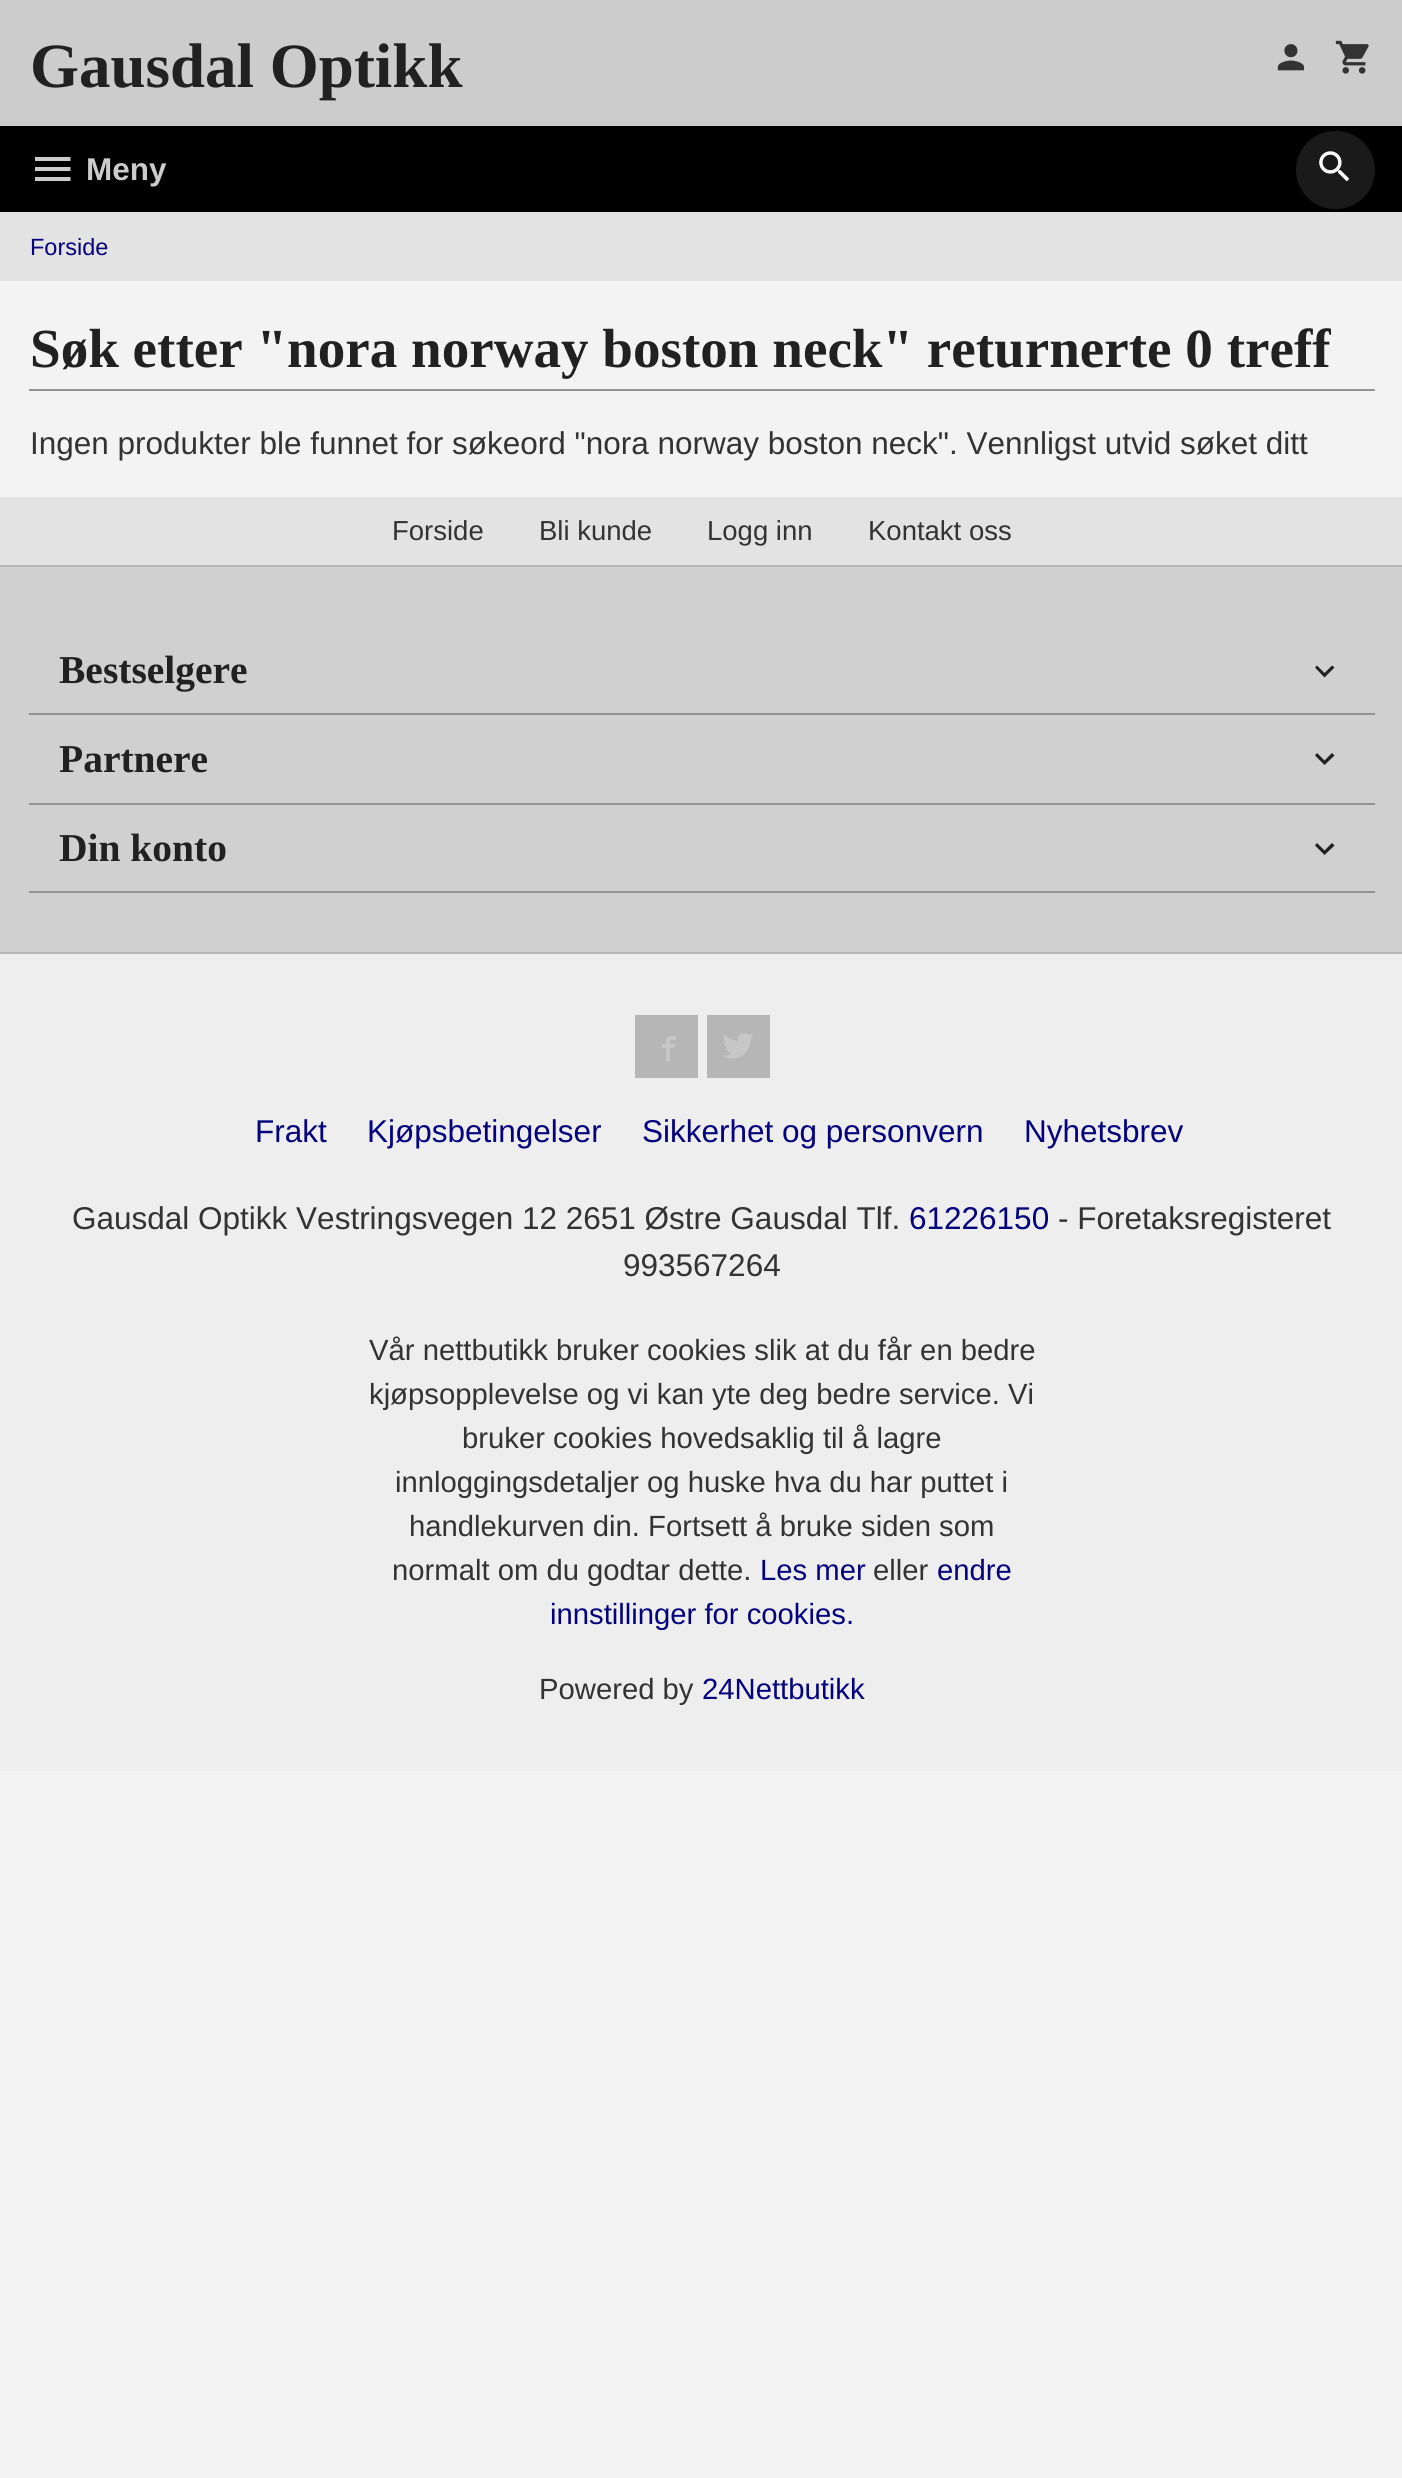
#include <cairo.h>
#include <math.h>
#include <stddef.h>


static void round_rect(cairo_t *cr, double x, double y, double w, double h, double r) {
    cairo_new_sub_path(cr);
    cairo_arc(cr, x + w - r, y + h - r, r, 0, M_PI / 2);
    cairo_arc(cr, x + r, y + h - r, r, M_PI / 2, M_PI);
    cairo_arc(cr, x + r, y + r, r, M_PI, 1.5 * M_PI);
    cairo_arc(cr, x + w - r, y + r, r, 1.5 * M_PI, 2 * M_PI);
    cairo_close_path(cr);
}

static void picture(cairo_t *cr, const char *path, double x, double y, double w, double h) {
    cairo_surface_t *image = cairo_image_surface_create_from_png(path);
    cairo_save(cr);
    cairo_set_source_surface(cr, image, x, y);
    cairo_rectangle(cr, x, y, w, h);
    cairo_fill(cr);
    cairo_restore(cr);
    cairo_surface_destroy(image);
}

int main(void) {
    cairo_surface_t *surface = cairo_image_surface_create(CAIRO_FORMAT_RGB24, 1402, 2478);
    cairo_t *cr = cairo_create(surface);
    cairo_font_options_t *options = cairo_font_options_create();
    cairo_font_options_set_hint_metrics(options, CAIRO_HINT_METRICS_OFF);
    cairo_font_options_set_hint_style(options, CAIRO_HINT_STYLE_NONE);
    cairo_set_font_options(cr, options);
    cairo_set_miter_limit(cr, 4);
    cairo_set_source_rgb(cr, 0.953, 0.953, 0.953);
    cairo_paint(cr);
    cairo_set_source_rgb(cr, 0.8, 0.8, 0.8);
    cairo_rectangle(cr, 0, 0, 1402, 126);
    cairo_fill(cr);
    cairo_select_font_face(cr, "Liberation Serif", CAIRO_FONT_SLANT_NORMAL, CAIRO_FONT_WEIGHT_BOLD);
    cairo_set_font_size(cr, 63);
    cairo_set_source_rgb(cr, 0.129, 0.129, 0.129);
    cairo_move_to(cr, 30, 87);
    cairo_show_text(cr, "Gausdal Optikk");
    picture(cr, "img1.png", 1277, 44, 28, 27);
    picture(cr, "img2.png", 1335, 40, 34, 34);
    cairo_set_source_rgb(cr, 0, 0, 0);
    cairo_rectangle(cr, 0, 126, 1402, 86);
    cairo_fill(cr);
    cairo_set_source_rgb(cr, 0.8, 0.8, 0.8);
    cairo_new_path(cr);
    cairo_move_to(cr, 35, 181);
    cairo_line_to(cr, 70.5, 181);
    cairo_line_to(cr, 70.5, 177);
    cairo_line_to(cr, 35, 177);
    cairo_close_path(cr);
    cairo_move_to(cr, 35, 171);
    cairo_line_to(cr, 70.5, 171);
    cairo_line_to(cr, 70.5, 167);
    cairo_line_to(cr, 35, 167);
    cairo_close_path(cr);
    cairo_move_to(cr, 35, 157);
    cairo_line_to(cr, 35, 161);
    cairo_line_to(cr, 70.5, 161);
    cairo_line_to(cr, 70.5, 157);
    cairo_close_path(cr);
    cairo_fill(cr);
    cairo_select_font_face(cr, "Liberation Sans", CAIRO_FONT_SLANT_NORMAL, CAIRO_FONT_WEIGHT_BOLD);
    cairo_set_font_size(cr, 31.5);
    cairo_move_to(cr, 86, 180);
    cairo_show_text(cr, "Meny");
    cairo_set_source_rgb(cr, 0.102, 0.102, 0.102);
    round_rect(cr, 1296, 131, 79, 78, 39);
    cairo_fill(cr);
    picture(cr, "img3.png", 1319, 151, 31, 31);
    cairo_set_source_rgb(cr, 0.89, 0.89, 0.89);
    cairo_rectangle(cr, 0, 212, 1402, 69);
    cairo_fill(cr);
    cairo_select_font_face(cr, "Liberation Sans", CAIRO_FONT_SLANT_NORMAL, CAIRO_FONT_WEIGHT_NORMAL);
    cairo_set_font_size(cr, 23.5);
    cairo_set_source_rgb(cr, 0.016, 0.004, 0.49);
    cairo_move_to(cr, 30, 255);
    cairo_show_text(cr, "Forside");
    cairo_set_source_rgb(cr, 0.576, 0.576, 0.576);
    cairo_rectangle(cr, 29, 389, 1346, 2);
    cairo_fill(cr);
    cairo_select_font_face(cr, "Liberation Serif", CAIRO_FONT_SLANT_NORMAL, CAIRO_FONT_WEIGHT_BOLD);
    cairo_set_font_size(cr, 55.1);
    cairo_set_source_rgb(cr, 0.129, 0.129, 0.129);
    cairo_move_to(cr, 30, 367);
    cairo_show_text(cr, "Søk etter \"nora norway boston neck\" returnerte 0 treff");
    cairo_select_font_face(cr, "Liberation Sans", CAIRO_FONT_SLANT_NORMAL, CAIRO_FONT_WEIGHT_NORMAL);
    cairo_set_font_size(cr, 31.5);
    cairo_set_source_rgb(cr, 0.2, 0.2, 0.2);
    cairo_move_to(cr, 30, 454);
    cairo_show_text(cr, "Ingen produkter ble funnet for søkeord \"nora norway boston neck\". Vennligst utvid søket ditt");
    cairo_set_source_rgb(cr, 0.89, 0.89, 0.89);
    cairo_rectangle(cr, 0, 497, 1402, 68);
    cairo_fill(cr);
    cairo_set_font_size(cr, 27.5);
    cairo_set_source_rgb(cr, 0.2, 0.2, 0.2);
    cairo_move_to(cr, 392, 540);
    cairo_show_text(cr, "Forside");
    cairo_move_to(cr, 539, 540);
    cairo_show_text(cr, "Bli kunde");
    cairo_move_to(cr, 707, 540);
    cairo_show_text(cr, "Logg inn");
    cairo_move_to(cr, 868, 540);
    cairo_show_text(cr, "Kontakt oss");
    cairo_set_source_rgb(cr, 0.816, 0.816, 0.816);
    cairo_rectangle(cr, 0, 567, 1402, 385);
    cairo_fill(cr);
    cairo_set_source_rgb(cr, 0.714, 0.714, 0.714);
    cairo_rectangle(cr, 0, 565, 1402, 2);
    cairo_fill(cr);
    cairo_set_source_rgb(cr, 0.569, 0.569, 0.569);
    cairo_rectangle(cr, 29, 713, 1346, 2);
    cairo_fill(cr);
    cairo_select_font_face(cr, "Liberation Serif", CAIRO_FONT_SLANT_NORMAL, CAIRO_FONT_WEIGHT_BOLD);
    cairo_set_font_size(cr, 39.5);
    cairo_set_source_rgb(cr, 0.129, 0.129, 0.129);
    cairo_move_to(cr, 59, 683);
    cairo_show_text(cr, "Bestselgere");
    cairo_new_path(cr);
    cairo_move_to(cr, 1317, 665.5);
    cairo_line_to(cr, 1324.5, 673);
    cairo_line_to(cr, 1332, 665.5);
    cairo_line_to(cr, 1334.5, 667.5);
    cairo_line_to(cr, 1324.5, 677.5);
    cairo_line_to(cr, 1315, 667.5);
    cairo_close_path(cr);
    cairo_fill(cr);
    cairo_set_source_rgb(cr, 0.569, 0.569, 0.569);
    cairo_rectangle(cr, 29, 803, 1346, 2);
    cairo_fill(cr);
    cairo_set_source_rgb(cr, 0.129, 0.129, 0.129);
    cairo_move_to(cr, 59, 772);
    cairo_show_text(cr, "Partnere");
    cairo_new_path(cr);
    cairo_move_to(cr, 1317, 753);
    cairo_line_to(cr, 1324.5, 760.5);
    cairo_line_to(cr, 1332, 753);
    cairo_line_to(cr, 1334.5, 755.5);
    cairo_line_to(cr, 1324.5, 765);
    cairo_line_to(cr, 1315, 755.5);
    cairo_close_path(cr);
    cairo_fill(cr);
    cairo_set_source_rgb(cr, 0.569, 0.569, 0.569);
    cairo_rectangle(cr, 29, 891, 1346, 2);
    cairo_fill(cr);
    cairo_set_source_rgb(cr, 0.129, 0.129, 0.129);
    cairo_move_to(cr, 59, 861);
    cairo_show_text(cr, "Din konto");
    cairo_new_path(cr);
    cairo_move_to(cr, 1317, 843);
    cairo_line_to(cr, 1324.5, 850.5);
    cairo_line_to(cr, 1332, 843);
    cairo_line_to(cr, 1334.5, 845.5);
    cairo_line_to(cr, 1324.5, 855);
    cairo_line_to(cr, 1315, 845.5);
    cairo_close_path(cr);
    cairo_fill(cr);
    cairo_set_source_rgb(cr, 0.933, 0.933, 0.933);
    cairo_rectangle(cr, 0, 954, 1402, 817);
    cairo_fill(cr);
    cairo_set_source_rgb(cr, 0.714, 0.714, 0.714);
    cairo_rectangle(cr, 0, 952, 1402, 2);
    cairo_fill(cr);
    cairo_rectangle(cr, 635, 1015, 63, 63);
    cairo_fill(cr);
    picture(cr, "img4.png", 662, 1036, 14, 26);
    cairo_rectangle(cr, 707, 1015, 63, 63);
    cairo_fill(cr);
    picture(cr, "img5.png", 723, 1033, 30, 26);
    cairo_select_font_face(cr, "Liberation Sans", CAIRO_FONT_SLANT_NORMAL, CAIRO_FONT_WEIGHT_NORMAL);
    cairo_set_font_size(cr, 31.5);
    cairo_set_source_rgb(cr, 0.016, 0.004, 0.49);
    cairo_move_to(cr, 255, 1142);
    cairo_show_text(cr, "Frakt");
    cairo_move_to(cr, 367, 1142);
    cairo_show_text(cr, "Kjøpsbetingelser");
    cairo_move_to(cr, 642, 1142);
    cairo_show_text(cr, "Sikkerhet og personvern");
    cairo_move_to(cr, 1024, 1142);
    cairo_show_text(cr, "Nyhetsbrev");
    cairo_set_source_rgb(cr, 0.2, 0.2, 0.2);
    cairo_move_to(cr, 72, 1229);
    cairo_show_text(cr, "Gausdal Optikk Vestringsvegen 12 2651 Østre Gausdal Tlf.");
    cairo_set_source_rgb(cr, 0.016, 0.004, 0.49);
    cairo_move_to(cr, 909, 1229);
    cairo_show_text(cr, "61226150");
    cairo_set_source_rgb(cr, 0.2, 0.2, 0.2);
    cairo_move_to(cr, 1058, 1229);
    cairo_show_text(cr, "- Foretaksregisteret");
    cairo_move_to(cr, 623, 1276);
    cairo_show_text(cr, "993567264");
    cairo_set_font_size(cr, 29.25);
    cairo_move_to(cr, 369, 1360);
    cairo_show_text(cr, "Vår nettbutikk bruker cookies slik at du får en bedre");
    cairo_move_to(cr, 369, 1404);
    cairo_show_text(cr, "kjøpsopplevelse og vi kan yte deg bedre service. Vi");
    cairo_move_to(cr, 462, 1448);
    cairo_show_text(cr, "bruker cookies hovedsaklig til å lagre");
    cairo_move_to(cr, 395, 1492);
    cairo_show_text(cr, "innloggingsdetaljer og huske hva du har puttet i");
    cairo_move_to(cr, 409, 1536);
    cairo_show_text(cr, "handlekurven din. Fortsett å bruke siden som");
    cairo_move_to(cr, 392, 1580);
    cairo_show_text(cr, "normalt om du godtar dette.");
    cairo_set_source_rgb(cr, 0.016, 0.004, 0.49);
    cairo_move_to(cr, 760, 1580);
    cairo_show_text(cr, "Les mer");
    cairo_set_source_rgb(cr, 0.2, 0.2, 0.2);
    cairo_move_to(cr, 873, 1580);
    cairo_show_text(cr, "eller");
    cairo_set_source_rgb(cr, 0.016, 0.004, 0.49);
    cairo_move_to(cr, 937, 1580);
    cairo_show_text(cr, "endre");
    cairo_move_to(cr, 550, 1624);
    cairo_show_text(cr, "innstillinger for cookies.");
    cairo_set_source_rgb(cr, 0.2, 0.2, 0.2);
    cairo_move_to(cr, 539, 1699);
    cairo_show_text(cr, "Powered by");
    cairo_set_source_rgb(cr, 0.016, 0.004, 0.49);
    cairo_move_to(cr, 702, 1699);
    cairo_show_text(cr, "24Nettbutikk");
    cairo_surface_write_to_png(surface, "page.png");
    cairo_font_options_destroy(options);
    cairo_destroy(cr);
    cairo_surface_destroy(surface);
    return 0;
}
